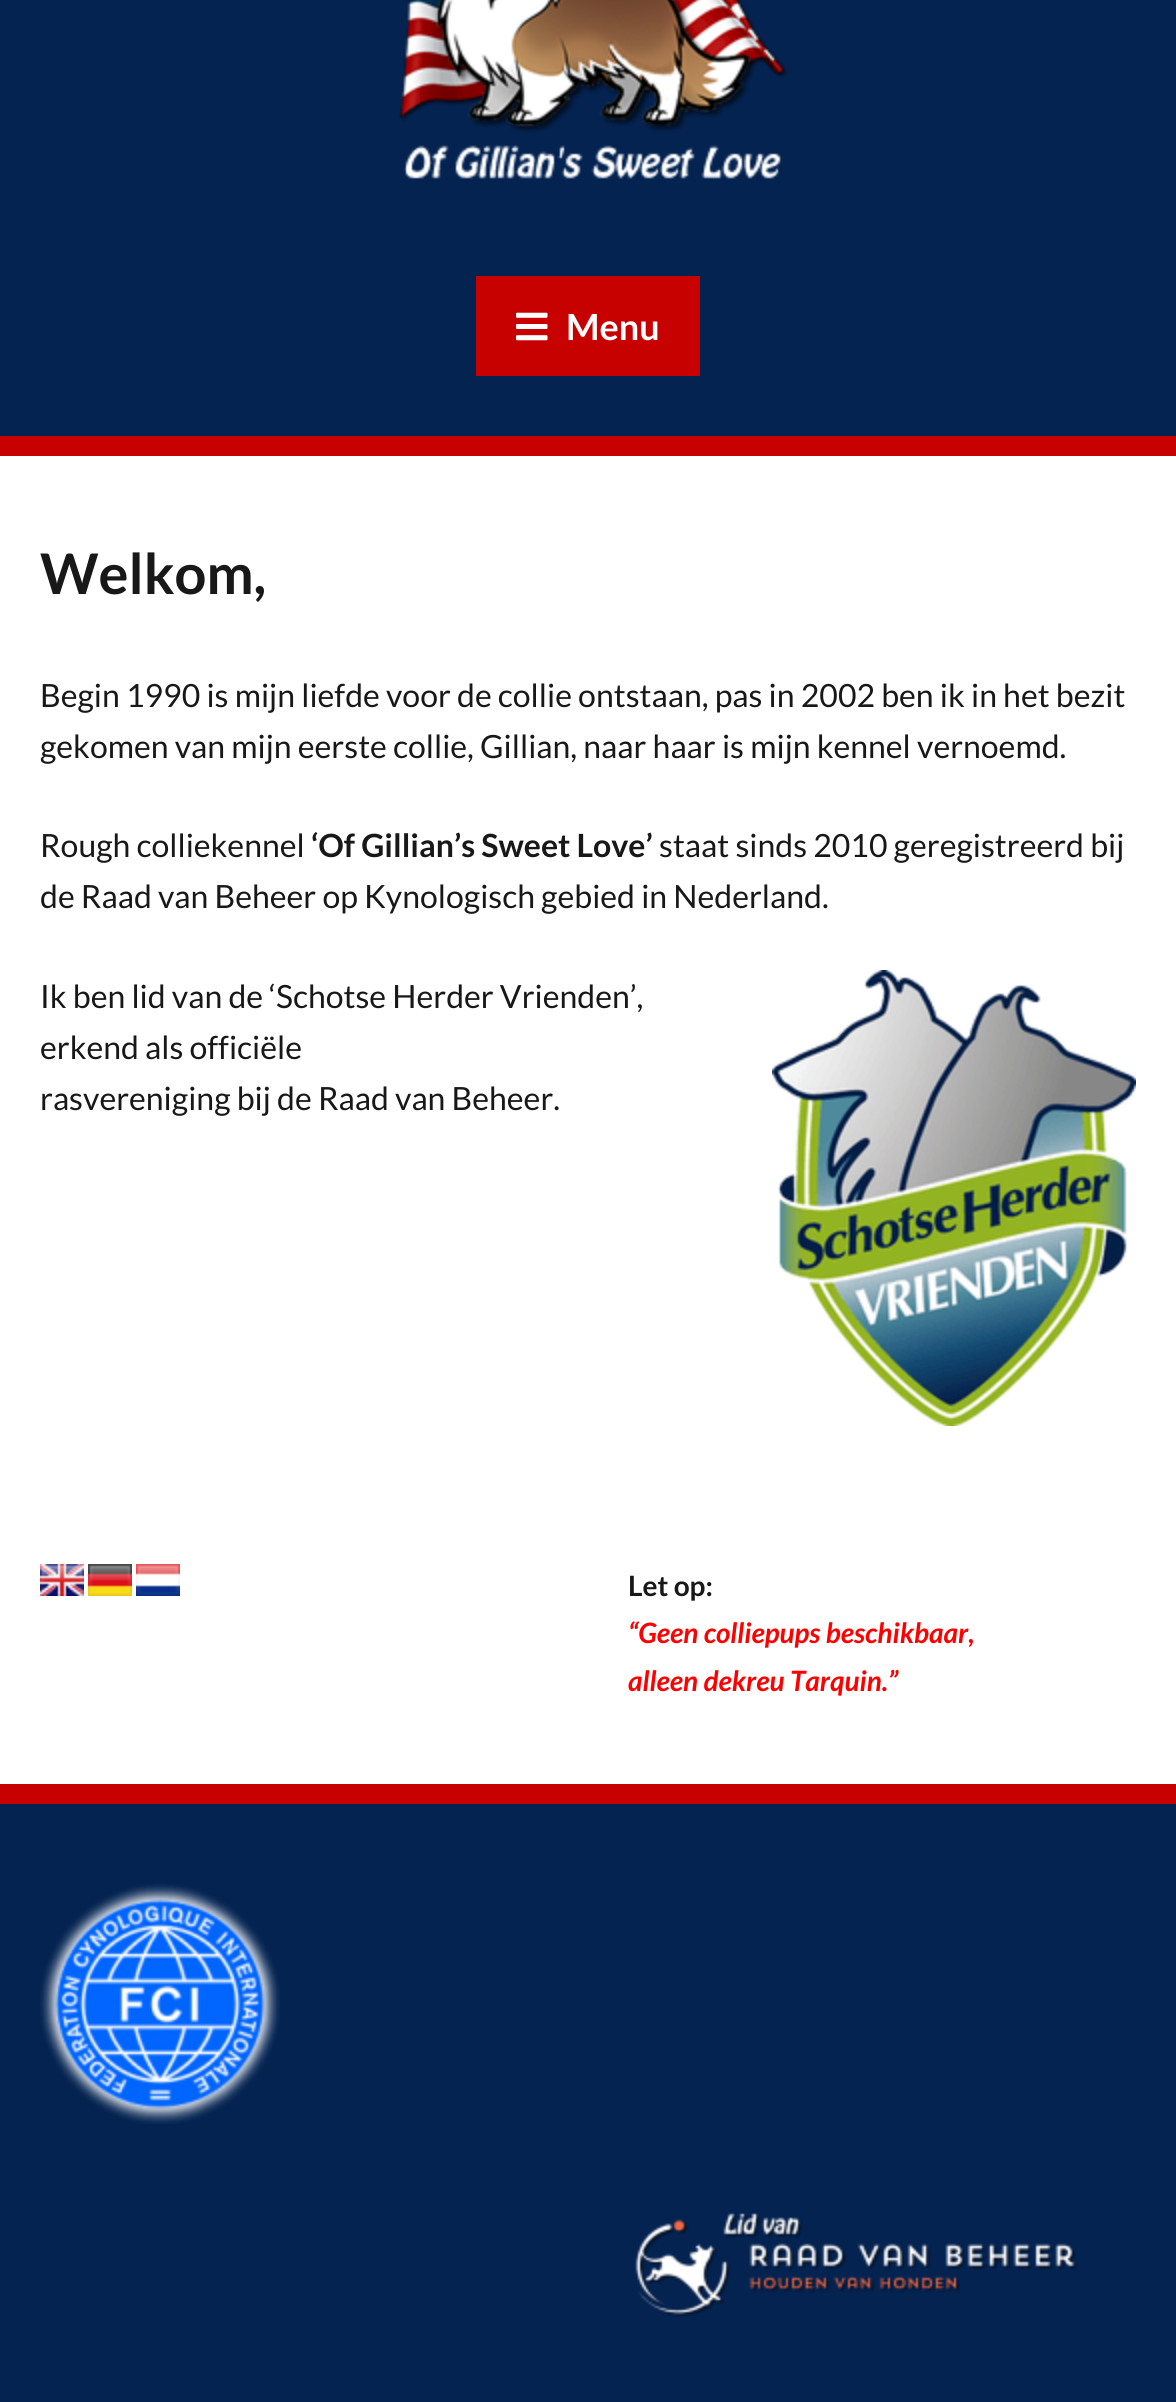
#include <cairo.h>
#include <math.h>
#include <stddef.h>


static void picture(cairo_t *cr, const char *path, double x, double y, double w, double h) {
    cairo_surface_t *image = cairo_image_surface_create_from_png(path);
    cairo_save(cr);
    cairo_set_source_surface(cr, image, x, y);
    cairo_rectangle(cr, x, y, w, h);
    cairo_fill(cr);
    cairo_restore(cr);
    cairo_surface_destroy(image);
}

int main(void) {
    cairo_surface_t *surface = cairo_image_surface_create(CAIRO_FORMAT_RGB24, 1176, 2402);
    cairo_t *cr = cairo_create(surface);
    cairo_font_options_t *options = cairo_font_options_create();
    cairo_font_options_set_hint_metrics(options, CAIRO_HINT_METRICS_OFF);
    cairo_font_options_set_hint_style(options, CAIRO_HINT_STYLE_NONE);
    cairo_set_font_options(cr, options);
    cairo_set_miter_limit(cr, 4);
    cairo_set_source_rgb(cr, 0.016, 0.137, 0.318);
    cairo_paint(cr);
    cairo_set_source_rgb(cr, 0.78, 0, 0);
    cairo_rectangle(cr, 0, 436, 1176, 20);
    cairo_fill(cr);
    picture(cr, "img1.png", 399, 0, 389, 179);
    cairo_rectangle(cr, 476, 276, 224, 100);
    cairo_fill(cr);
    picture(cr, "img2.png", 516, 312, 32, 29);
    cairo_select_font_face(cr, "Lato", CAIRO_FONT_SLANT_NORMAL, CAIRO_FONT_WEIGHT_BOLD);
    cairo_set_font_size(cr, 36);
    cairo_set_source_rgb(cr, 1, 1, 1);
    cairo_move_to(cr, 566, 340);
    cairo_show_text(cr, "Menu");
    cairo_rectangle(cr, 0, 456, 1176, 1328);
    cairo_fill(cr);
    cairo_set_font_size(cr, 56);
    cairo_set_source_rgb(cr, 0.094, 0.094, 0.094);
    cairo_move_to(cr, 40, 594);
    cairo_show_text(cr, "Welkom,");
    cairo_select_font_face(cr, "Lato", CAIRO_FONT_SLANT_NORMAL, CAIRO_FONT_WEIGHT_NORMAL);
    cairo_set_font_size(cr, 32);
    cairo_move_to(cr, 40, 707);
    cairo_show_text(cr, "Begin 1990 is mijn liefde voor de collie ontstaan, pas in 2002 ben ik in het bezit");
    cairo_move_to(cr, 40, 758);
    cairo_show_text(cr, "gekomen van mijn eerste collie, Gillian, naar haar is mijn kennel vernoemd.");
    cairo_move_to(cr, 40, 857);
    cairo_show_text(cr, "Rough colliekennel");
    cairo_select_font_face(cr, "Lato", CAIRO_FONT_SLANT_NORMAL, CAIRO_FONT_WEIGHT_BOLD);
    cairo_move_to(cr, 311, 857);
    cairo_show_text(cr, "‘Of Gillian’s Sweet Love’");
    cairo_select_font_face(cr, "Lato", CAIRO_FONT_SLANT_NORMAL, CAIRO_FONT_WEIGHT_NORMAL);
    cairo_move_to(cr, 659, 857);
    cairo_show_text(cr, "staat sinds 2010 geregistreerd bij");
    cairo_move_to(cr, 40, 908);
    cairo_show_text(cr, "de Raad van Beheer op Kynologisch gebied in Nederland.");
    cairo_move_to(cr, 40, 1008);
    cairo_show_text(cr, "Ik ben lid van de ‘Schotse Herder Vrienden’,");
    picture(cr, "img3.png", 772, 970, 364, 456);
    cairo_move_to(cr, 40, 1059);
    cairo_show_text(cr, "erkend als officiële");
    cairo_move_to(cr, 40, 1110);
    cairo_show_text(cr, "rasvereniging bij de Raad van Beheer.");
    picture(cr, "img4.png", 40, 1564, 44, 32);
    picture(cr, "img5.png", 88, 1564, 44, 32);
    picture(cr, "img6.png", 136, 1564, 44, 32);
    cairo_select_font_face(cr, "Lato", CAIRO_FONT_SLANT_NORMAL, CAIRO_FONT_WEIGHT_BOLD);
    cairo_set_font_size(cr, 28);
    cairo_move_to(cr, 628, 1596);
    cairo_show_text(cr, "Let op:");
    cairo_select_font_face(cr, "Lato", CAIRO_FONT_SLANT_ITALIC, CAIRO_FONT_WEIGHT_BOLD);
    cairo_set_source_rgb(cr, 1, 0, 0);
    cairo_move_to(cr, 628, 1643);
    cairo_show_text(cr, "“Geen colliepups beschikbaar,");
    cairo_move_to(cr, 628, 1691);
    cairo_show_text(cr, "alleen dekreu Tarquin.”");
    cairo_set_source_rgb(cr, 0.78, 0, 0);
    cairo_rectangle(cr, 0, 1784, 1176, 20);
    cairo_fill(cr);
    picture(cr, "img7.png", 40, 1884, 240, 240);
    picture(cr, "img8.png", 635, 2213, 442, 104);
    cairo_surface_write_to_png(surface, "page.png");
    cairo_font_options_destroy(options);
    cairo_destroy(cr);
    cairo_surface_destroy(surface);
    return 0;
}
